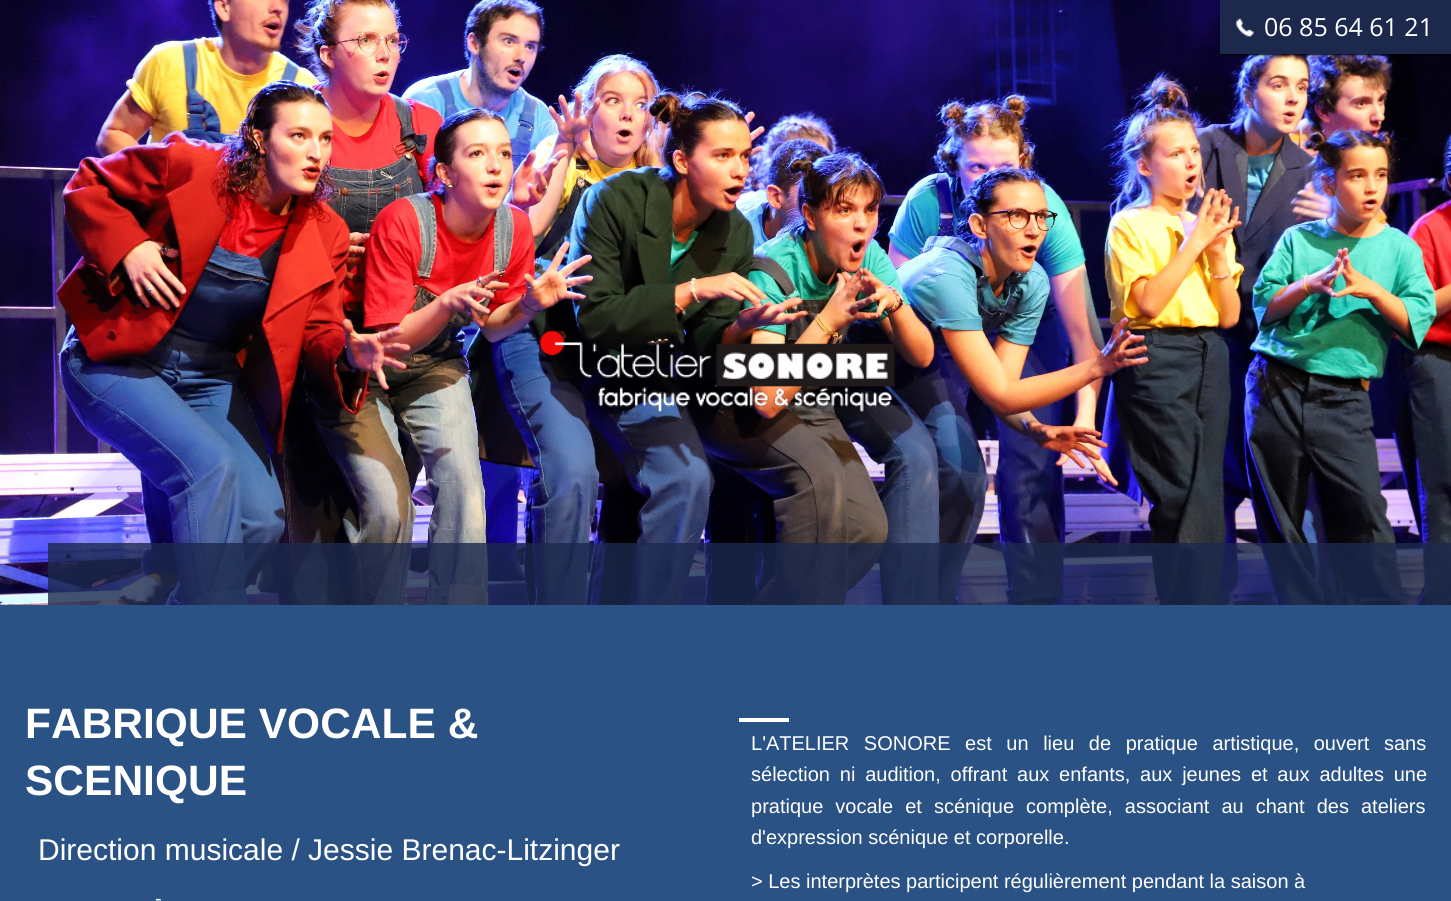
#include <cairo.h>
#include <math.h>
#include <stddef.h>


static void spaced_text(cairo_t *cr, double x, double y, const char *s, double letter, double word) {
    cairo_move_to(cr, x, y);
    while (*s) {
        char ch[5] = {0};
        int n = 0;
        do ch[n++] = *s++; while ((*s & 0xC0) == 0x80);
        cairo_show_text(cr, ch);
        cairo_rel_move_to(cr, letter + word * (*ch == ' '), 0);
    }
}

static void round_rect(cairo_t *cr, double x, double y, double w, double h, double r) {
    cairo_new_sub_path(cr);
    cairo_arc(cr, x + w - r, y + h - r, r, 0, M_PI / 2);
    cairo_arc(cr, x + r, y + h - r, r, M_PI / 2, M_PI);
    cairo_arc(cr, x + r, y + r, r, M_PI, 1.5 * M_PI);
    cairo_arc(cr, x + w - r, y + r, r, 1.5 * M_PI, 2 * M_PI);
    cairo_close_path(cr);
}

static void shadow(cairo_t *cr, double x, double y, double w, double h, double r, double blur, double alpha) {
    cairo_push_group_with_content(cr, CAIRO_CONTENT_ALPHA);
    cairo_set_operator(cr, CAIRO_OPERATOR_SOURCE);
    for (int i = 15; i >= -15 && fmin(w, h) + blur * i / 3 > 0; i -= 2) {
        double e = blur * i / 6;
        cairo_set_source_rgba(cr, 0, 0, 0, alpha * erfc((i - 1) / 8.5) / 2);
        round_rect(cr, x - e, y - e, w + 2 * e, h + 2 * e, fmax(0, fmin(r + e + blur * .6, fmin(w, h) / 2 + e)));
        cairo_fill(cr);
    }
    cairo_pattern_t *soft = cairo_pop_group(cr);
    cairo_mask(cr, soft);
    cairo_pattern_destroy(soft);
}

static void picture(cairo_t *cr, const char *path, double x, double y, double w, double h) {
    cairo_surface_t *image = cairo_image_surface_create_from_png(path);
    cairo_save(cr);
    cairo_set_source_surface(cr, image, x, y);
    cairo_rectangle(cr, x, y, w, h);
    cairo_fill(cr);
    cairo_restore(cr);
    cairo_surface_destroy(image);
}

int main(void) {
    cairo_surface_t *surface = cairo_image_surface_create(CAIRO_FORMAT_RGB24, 1451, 901);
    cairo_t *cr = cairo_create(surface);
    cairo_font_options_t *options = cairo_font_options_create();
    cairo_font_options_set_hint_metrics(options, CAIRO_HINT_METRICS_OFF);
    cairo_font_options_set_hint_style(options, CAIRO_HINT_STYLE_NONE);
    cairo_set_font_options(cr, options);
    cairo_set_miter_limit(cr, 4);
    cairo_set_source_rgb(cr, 0.165, 0.322, 0.518);
    cairo_paint(cr);
    picture(cr, "img1.png", 0, 0, 1451, 605);
    picture(cr, "img2.png", 539, 330, 357, 83);
    cairo_set_source_rgba(cr, 0.11, 0.161, 0.298, 0.8);
    cairo_rectangle(cr, 48, 543, 1403, 62);
    cairo_fill(cr);
    cairo_set_source_rgb(cr, 0, 0, 0);
    shadow(cr, 1221, 1, 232, 54, 0, 1, 1);
    cairo_set_source_rgb(cr, 0.11, 0.161, 0.298);
    cairo_rectangle(cr, 1220, 0, 231, 54);
    cairo_fill(cr);
    picture(cr, "img3.png", 1236, 18, 18, 19);
    cairo_select_font_face(cr, "Open Sans", CAIRO_FONT_SLANT_NORMAL, CAIRO_FONT_WEIGHT_NORMAL);
    cairo_set_font_size(cr, 25);
    cairo_set_source_rgb(cr, 1, 1, 1);
    cairo_move_to(cr, 1264, 36);
    cairo_show_text(cr, "06 85 64 61 21");
    cairo_select_font_face(cr, "Liberation Sans", CAIRO_FONT_SLANT_NORMAL, CAIRO_FONT_WEIGHT_BOLD);
    cairo_set_font_size(cr, 42.5);
    cairo_move_to(cr, 25, 738);
    cairo_show_text(cr, "FABRIQUE VOCALE &");
    cairo_move_to(cr, 25, 795);
    cairo_show_text(cr, "SCENIQUE");
    cairo_select_font_face(cr, "Liberation Sans", CAIRO_FONT_SLANT_NORMAL, CAIRO_FONT_WEIGHT_NORMAL);
    cairo_set_font_size(cr, 30);
    cairo_move_to(cr, 38, 860);
    cairo_show_text(cr, "Direction musicale / Jessie Brenac-Litzinger");
    cairo_set_font_size(cr, 20);
    spaced_text(cr, 155, 905, "-", 0, 4);
    cairo_rectangle(cr, 739, 718, 50, 4);
    cairo_fill(cr);
    spaced_text(cr, 751, 750, "L'ATELIER SONORE est un lieu de pratique artistique, ouvert sans", 0, 9);
    spaced_text(cr, 751, 781, "sélection ni audition, offrant aux enfants, aux jeunes et aux adultes une", 0, 4.25);
    spaced_text(cr, 751, 813, "pratique vocale et scénique complète, associant au chant des ateliers", 0, 6.5);
    cairo_move_to(cr, 751, 844);
    cairo_show_text(cr, "d'expression scénique et corporelle.");
    cairo_move_to(cr, 751, 888);
    cairo_show_text(cr, "> Les interprètes participent régulièrement pendant la saison à");
    cairo_surface_write_to_png(surface, "page.png");
    cairo_font_options_destroy(options);
    cairo_destroy(cr);
    cairo_surface_destroy(surface);
    return 0;
}
